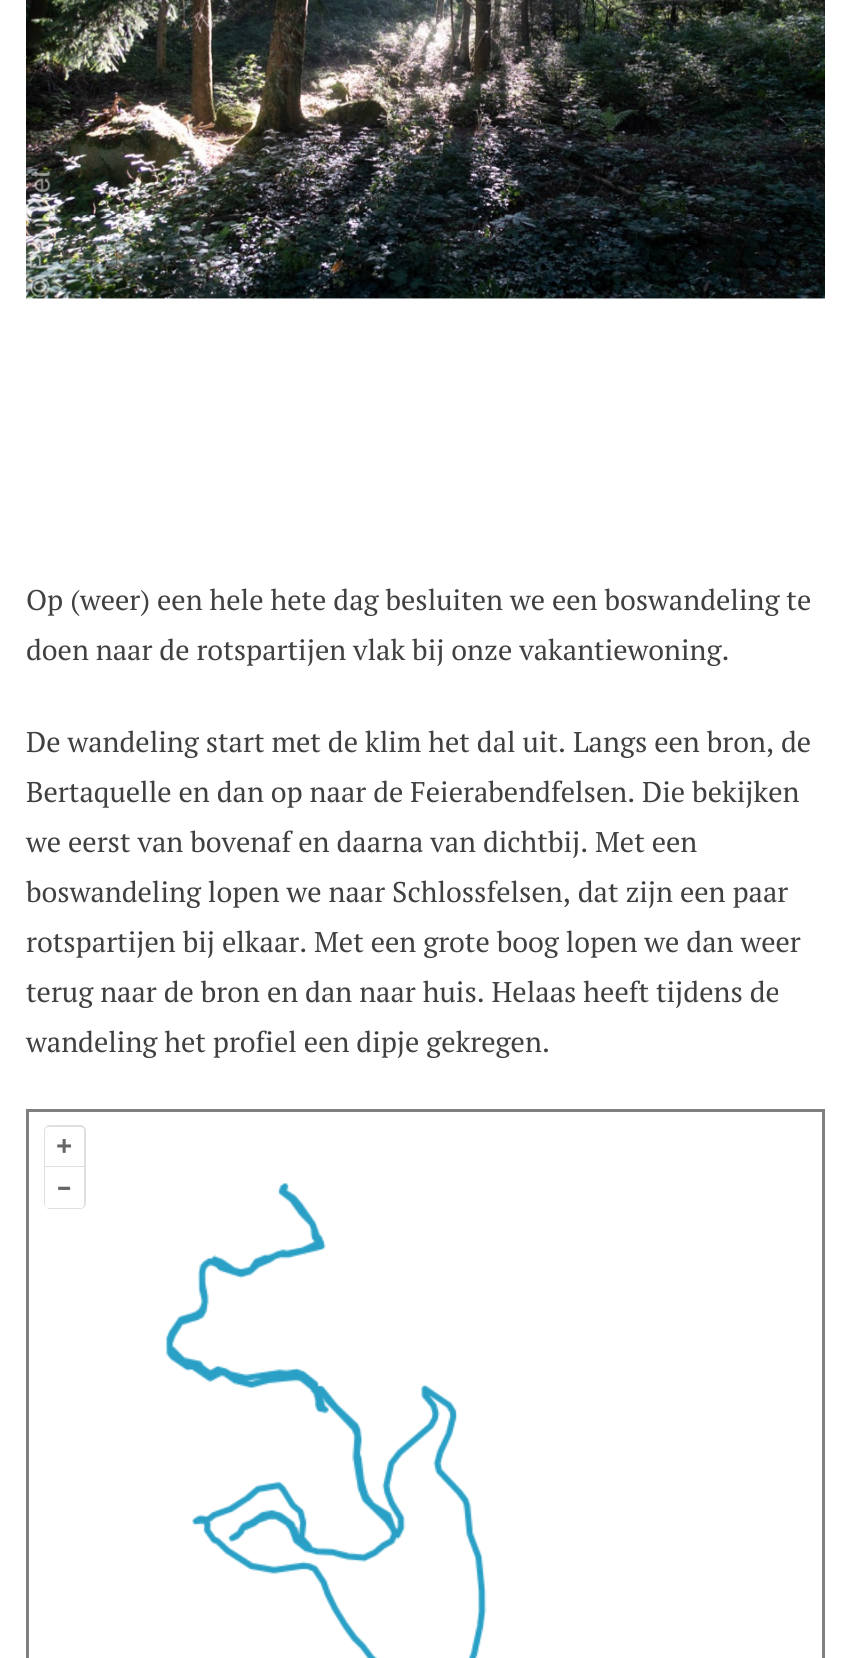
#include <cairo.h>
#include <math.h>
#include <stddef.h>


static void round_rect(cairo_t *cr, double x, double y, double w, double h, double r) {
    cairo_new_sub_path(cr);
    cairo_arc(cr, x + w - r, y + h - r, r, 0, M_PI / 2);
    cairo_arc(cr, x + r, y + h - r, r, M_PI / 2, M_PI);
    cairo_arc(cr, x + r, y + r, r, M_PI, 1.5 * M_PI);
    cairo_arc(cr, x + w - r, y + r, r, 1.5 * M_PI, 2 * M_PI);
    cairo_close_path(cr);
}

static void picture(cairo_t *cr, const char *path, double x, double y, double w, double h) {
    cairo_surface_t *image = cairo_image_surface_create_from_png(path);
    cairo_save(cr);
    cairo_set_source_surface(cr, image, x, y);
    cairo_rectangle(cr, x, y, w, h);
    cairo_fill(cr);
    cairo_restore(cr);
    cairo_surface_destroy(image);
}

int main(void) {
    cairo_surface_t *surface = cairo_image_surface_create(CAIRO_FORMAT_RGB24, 850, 1658);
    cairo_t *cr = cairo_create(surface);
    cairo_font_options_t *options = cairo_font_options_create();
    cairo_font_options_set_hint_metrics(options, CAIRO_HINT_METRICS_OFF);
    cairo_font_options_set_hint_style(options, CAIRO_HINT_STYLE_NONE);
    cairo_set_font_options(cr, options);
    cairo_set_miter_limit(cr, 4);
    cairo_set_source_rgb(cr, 1, 1, 1);
    cairo_paint(cr);
    picture(cr, "img1.png", 26, 0, 799, 299);
    cairo_select_font_face(cr, "PT Serif", CAIRO_FONT_SLANT_NORMAL, CAIRO_FONT_WEIGHT_NORMAL);
    cairo_set_font_size(cr, 28.5);
    cairo_set_source_rgb(cr, 0.251, 0.251, 0.251);
    cairo_move_to(cr, 26, 610);
    cairo_show_text(cr, "Op (weer) een hele hete dag besluiten we een boswandeling te");
    cairo_move_to(cr, 26, 660);
    cairo_show_text(cr, "doen naar de rotspartijen vlak bij onze vakantiewoning.");
    cairo_move_to(cr, 26, 752);
    cairo_show_text(cr, "De wandeling start met de klim het dal uit. Langs een bron, de");
    cairo_move_to(cr, 26, 802);
    cairo_show_text(cr, "Bertaquelle en dan op naar de Feierabendfelsen. Die bekijken");
    cairo_move_to(cr, 26, 852);
    cairo_show_text(cr, "we eerst van bovenaf en daarna van dichtbij. Met een");
    cairo_move_to(cr, 26, 902);
    cairo_show_text(cr, "boswandeling lopen we naar Schlossfelsen, dat zijn een paar");
    cairo_move_to(cr, 26, 952);
    cairo_show_text(cr, "rotspartijen bij elkaar. Met een grote boog lopen we dan weer");
    cairo_move_to(cr, 26, 1002);
    cairo_show_text(cr, "terug naar de bron en dan naar huis. Helaas heeft tijdens de");
    cairo_move_to(cr, 26, 1052);
    cairo_show_text(cr, "wandeling het profiel een dipje gekregen.");
    cairo_rectangle(cr, 27.5, 1110.5, 796, 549);
    cairo_set_source_rgb(cr, 0.502, 0.502, 0.502);
    cairo_set_line_width(cr, 3);
    cairo_stroke(cr);
    cairo_set_source_rgb(cr, 0.875, 0.875, 0.875);
    round_rect(cr, 44, 1125, 42, 84, 6);
    cairo_fill(cr);
    cairo_set_source_rgb(cr, 1, 1, 1);
    cairo_new_path(cr);
    cairo_move_to(cr, 48, 1127);
    cairo_line_to(cr, 81, 1127);
    cairo_curve_to(cr, 82.5, 1127, 84, 1128.5, 84, 1130);
    cairo_line_to(cr, 84, 1166);
    cairo_line_to(cr, 45, 1166);
    cairo_line_to(cr, 45, 1130);
    cairo_curve_to(cr, 45, 1128.5, 46.5, 1127, 48, 1127);
    cairo_close_path(cr);
    cairo_fill(cr);
    cairo_select_font_face(cr, "Open Sans", CAIRO_FONT_SLANT_NORMAL, CAIRO_FONT_WEIGHT_BOLD);
    cairo_set_source_rgb(cr, 0.4, 0.4, 0.4);
    cairo_move_to(cr, 56, 1156);
    cairo_show_text(cr, "+");
    cairo_set_source_rgb(cr, 1, 1, 1);
    cairo_new_path(cr);
    cairo_move_to(cr, 45, 1167);
    cairo_line_to(cr, 84, 1167);
    cairo_line_to(cr, 84, 1205);
    cairo_curve_to(cr, 84, 1206.5, 82.5, 1208, 81, 1208);
    cairo_line_to(cr, 48, 1208);
    cairo_curve_to(cr, 46.5, 1208, 45, 1206.5, 45, 1205);
    cairo_close_path(cr);
    cairo_fill(cr);
    cairo_set_source_rgb(cr, 0.4, 0.4, 0.4);
    cairo_move_to(cr, 57, 1196);
    cairo_show_text(cr, "–");
    picture(cr, "img2.png", 166, 1183, 321, 475);
    cairo_surface_write_to_png(surface, "page.png");
    cairo_font_options_destroy(options);
    cairo_destroy(cr);
    cairo_surface_destroy(surface);
    return 0;
}
